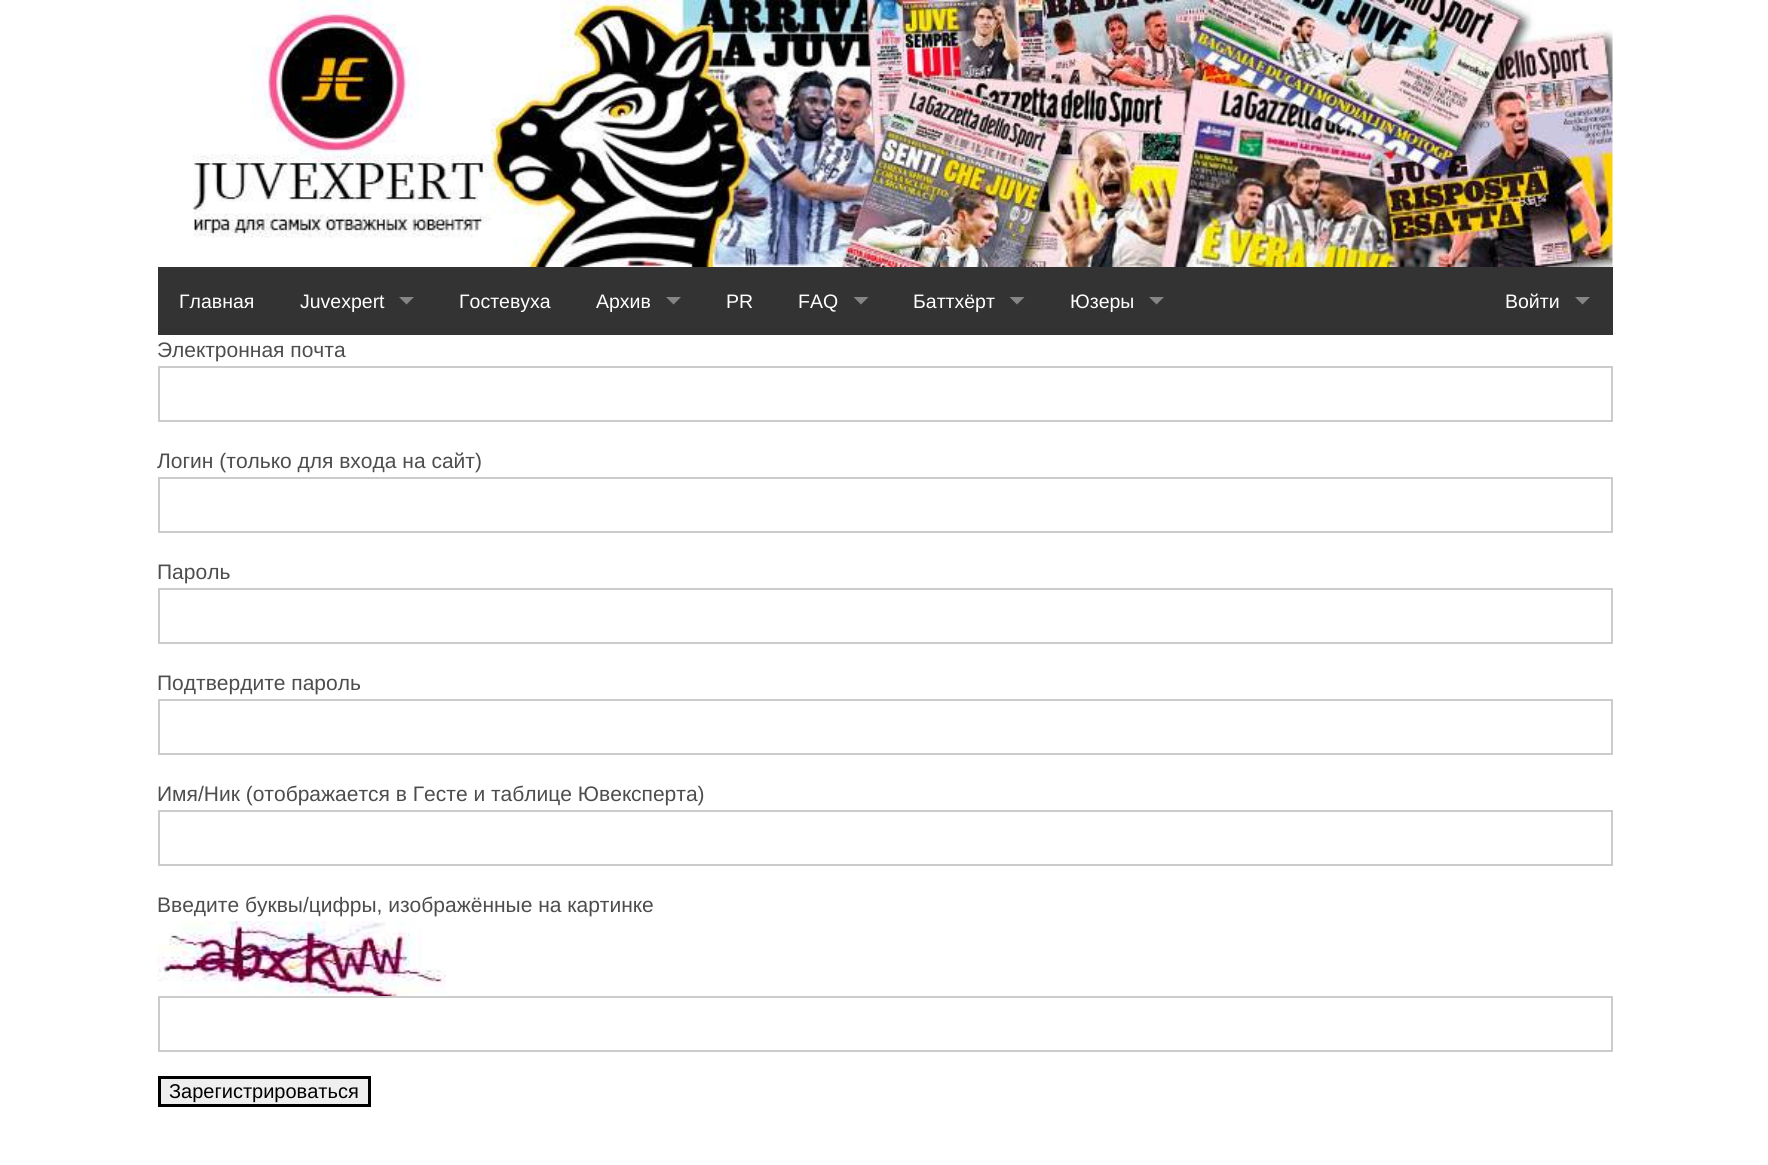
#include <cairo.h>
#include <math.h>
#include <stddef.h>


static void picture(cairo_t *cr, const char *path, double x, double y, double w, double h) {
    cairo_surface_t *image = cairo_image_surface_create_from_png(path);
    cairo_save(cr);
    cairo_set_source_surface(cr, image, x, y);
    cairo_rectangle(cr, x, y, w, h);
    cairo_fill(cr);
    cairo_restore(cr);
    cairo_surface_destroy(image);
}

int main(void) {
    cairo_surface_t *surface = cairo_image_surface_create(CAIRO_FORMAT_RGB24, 1768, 1165);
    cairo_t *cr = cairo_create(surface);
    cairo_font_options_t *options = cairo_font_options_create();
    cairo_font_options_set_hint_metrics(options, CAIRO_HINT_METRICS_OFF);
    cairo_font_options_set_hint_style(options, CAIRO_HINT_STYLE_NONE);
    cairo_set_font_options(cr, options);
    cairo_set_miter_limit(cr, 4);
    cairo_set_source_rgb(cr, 1, 1, 1);
    cairo_paint(cr);
    picture(cr, "img1.png", 192, 0, 1421, 267);
    cairo_set_source_rgb(cr, 0.2, 0.2, 0.2);
    cairo_rectangle(cr, 158, 267, 1455, 68);
    cairo_fill(cr);
    cairo_select_font_face(cr, "Liberation Sans", CAIRO_FONT_SLANT_NORMAL, CAIRO_FONT_WEIGHT_NORMAL);
    cairo_set_font_size(cr, 19.5);
    cairo_set_source_rgb(cr, 1, 1, 1);
    cairo_move_to(cr, 179, 308);
    cairo_show_text(cr, "Главная");
    cairo_move_to(cr, 300, 308);
    cairo_show_text(cr, "Juvexpert");
    cairo_set_source_rgb(cr, 0.522, 0.522, 0.522);
    cairo_new_path(cr);
    cairo_move_to(cr, 399, 297);
    cairo_line_to(cr, 414, 297);
    cairo_line_to(cr, 406.5, 304.5);
    cairo_close_path(cr);
    cairo_fill(cr);
    cairo_set_source_rgb(cr, 1, 1, 1);
    cairo_move_to(cr, 459, 308);
    cairo_show_text(cr, "Гостевуха");
    cairo_move_to(cr, 596, 308);
    cairo_show_text(cr, "Архив");
    cairo_set_source_rgb(cr, 0.522, 0.522, 0.522);
    cairo_new_path(cr);
    cairo_move_to(cr, 666, 297);
    cairo_line_to(cr, 681, 297);
    cairo_line_to(cr, 673.5, 304.5);
    cairo_close_path(cr);
    cairo_fill(cr);
    cairo_set_source_rgb(cr, 1, 1, 1);
    cairo_move_to(cr, 726, 308);
    cairo_show_text(cr, "PR");
    cairo_move_to(cr, 798, 308);
    cairo_show_text(cr, "FAQ");
    cairo_set_source_rgb(cr, 0.522, 0.522, 0.522);
    cairo_new_path(cr);
    cairo_move_to(cr, 853.5, 297);
    cairo_line_to(cr, 868.5, 297);
    cairo_line_to(cr, 861, 304.5);
    cairo_close_path(cr);
    cairo_fill(cr);
    cairo_set_source_rgb(cr, 1, 1, 1);
    cairo_move_to(cr, 913, 308);
    cairo_show_text(cr, "Баттхёрт");
    cairo_set_source_rgb(cr, 0.522, 0.522, 0.522);
    cairo_new_path(cr);
    cairo_move_to(cr, 1009.5, 297);
    cairo_line_to(cr, 1024.5, 297);
    cairo_line_to(cr, 1017, 304.5);
    cairo_close_path(cr);
    cairo_fill(cr);
    cairo_set_source_rgb(cr, 1, 1, 1);
    cairo_move_to(cr, 1070, 308);
    cairo_show_text(cr, "Юзеры");
    cairo_set_source_rgb(cr, 0.522, 0.522, 0.522);
    cairo_new_path(cr);
    cairo_move_to(cr, 1149, 297);
    cairo_line_to(cr, 1164, 297);
    cairo_line_to(cr, 1156.5, 304.5);
    cairo_close_path(cr);
    cairo_fill(cr);
    cairo_set_source_rgb(cr, 1, 1, 1);
    cairo_move_to(cr, 1505, 308);
    cairo_show_text(cr, "Войти");
    cairo_set_source_rgb(cr, 0.522, 0.522, 0.522);
    cairo_new_path(cr);
    cairo_move_to(cr, 1575, 297);
    cairo_line_to(cr, 1590, 297);
    cairo_line_to(cr, 1582.5, 304.5);
    cairo_close_path(cr);
    cairo_fill(cr);
    cairo_set_font_size(cr, 21);
    cairo_set_source_rgb(cr, 0.302, 0.302, 0.302);
    cairo_move_to(cr, 157, 357);
    cairo_show_text(cr, "Электронная почта");
    cairo_rectangle(cr, 159, 367, 1453, 54);
    cairo_set_source_rgb(cr, 0.8, 0.8, 0.8);
    cairo_stroke(cr);
    cairo_set_source_rgb(cr, 0.302, 0.302, 0.302);
    cairo_move_to(cr, 157, 468);
    cairo_show_text(cr, "Логин (только для входа на сайт)");
    cairo_rectangle(cr, 159, 478, 1453, 54);
    cairo_set_source_rgb(cr, 0.8, 0.8, 0.8);
    cairo_stroke(cr);
    cairo_set_source_rgb(cr, 0.302, 0.302, 0.302);
    cairo_move_to(cr, 157, 579);
    cairo_show_text(cr, "Пароль");
    cairo_rectangle(cr, 159, 589, 1453, 54);
    cairo_set_source_rgb(cr, 0.8, 0.8, 0.8);
    cairo_stroke(cr);
    cairo_set_source_rgb(cr, 0.302, 0.302, 0.302);
    cairo_move_to(cr, 157, 690);
    cairo_show_text(cr, "Подтвердите пароль");
    cairo_rectangle(cr, 159, 700, 1453, 54);
    cairo_set_source_rgb(cr, 0.8, 0.8, 0.8);
    cairo_stroke(cr);
    cairo_set_source_rgb(cr, 0.302, 0.302, 0.302);
    cairo_move_to(cr, 157, 801);
    cairo_show_text(cr, "Имя/Ник (отображается в Гесте и таблице Ювексперта)");
    cairo_rectangle(cr, 159, 811, 1453, 54);
    cairo_set_source_rgb(cr, 0.8, 0.8, 0.8);
    cairo_stroke(cr);
    cairo_set_source_rgb(cr, 0.302, 0.302, 0.302);
    cairo_move_to(cr, 157, 912);
    cairo_show_text(cr, "Введите буквы/цифры, изображённые на картинке");
    picture(cr, "img2.png", 157, 921, 289, 75);
    cairo_rectangle(cr, 159, 997, 1453, 54);
    cairo_set_source_rgb(cr, 0.8, 0.8, 0.8);
    cairo_stroke(cr);
    cairo_set_source_rgb(cr, 0.937, 0.937, 0.937);
    cairo_rectangle(cr, 159.5, 1077.5, 210, 28);
    cairo_fill_preserve(cr);
    cairo_set_source_rgb(cr, 0, 0, 0);
    cairo_set_line_width(cr, 3);
    cairo_stroke(cr);
    cairo_set_font_size(cr, 20);
    cairo_move_to(cr, 169, 1098);
    cairo_show_text(cr, "Зарегистрироваться");
    cairo_surface_write_to_png(surface, "page.png");
    cairo_font_options_destroy(options);
    cairo_destroy(cr);
    cairo_surface_destroy(surface);
    return 0;
}
